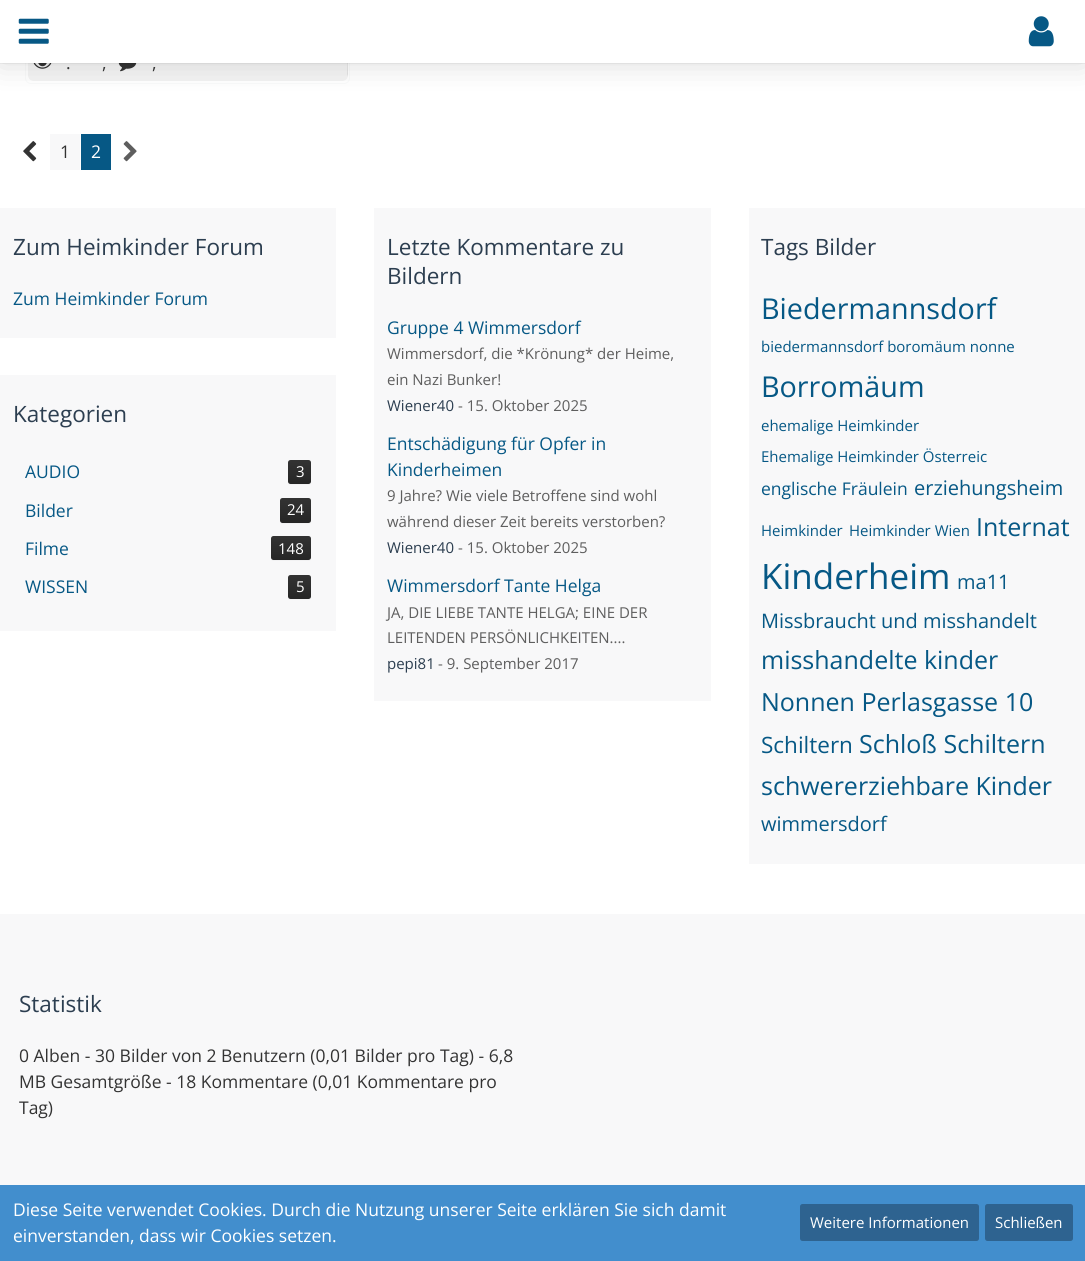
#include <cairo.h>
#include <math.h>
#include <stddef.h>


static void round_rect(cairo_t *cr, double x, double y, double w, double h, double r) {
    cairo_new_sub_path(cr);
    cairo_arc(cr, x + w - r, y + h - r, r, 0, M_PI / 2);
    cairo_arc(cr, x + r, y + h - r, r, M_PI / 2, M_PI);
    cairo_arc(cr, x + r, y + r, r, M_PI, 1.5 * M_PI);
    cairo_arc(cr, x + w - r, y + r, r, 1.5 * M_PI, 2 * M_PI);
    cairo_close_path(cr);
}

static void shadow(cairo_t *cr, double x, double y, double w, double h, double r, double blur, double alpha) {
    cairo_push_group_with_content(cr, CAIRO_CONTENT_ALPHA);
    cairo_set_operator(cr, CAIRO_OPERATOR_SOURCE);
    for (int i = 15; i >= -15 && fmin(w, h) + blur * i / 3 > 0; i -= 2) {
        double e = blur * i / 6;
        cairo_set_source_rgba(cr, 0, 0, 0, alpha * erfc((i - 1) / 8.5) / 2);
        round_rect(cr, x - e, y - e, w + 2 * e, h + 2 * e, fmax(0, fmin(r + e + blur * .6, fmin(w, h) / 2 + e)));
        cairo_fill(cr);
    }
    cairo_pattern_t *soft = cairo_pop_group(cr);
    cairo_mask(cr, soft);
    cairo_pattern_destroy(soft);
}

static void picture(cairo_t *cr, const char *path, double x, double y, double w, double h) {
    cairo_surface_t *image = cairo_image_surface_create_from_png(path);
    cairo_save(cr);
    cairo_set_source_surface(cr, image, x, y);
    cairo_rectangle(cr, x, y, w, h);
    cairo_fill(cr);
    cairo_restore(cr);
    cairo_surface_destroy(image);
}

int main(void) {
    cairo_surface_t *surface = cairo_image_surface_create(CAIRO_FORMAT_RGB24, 1085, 1261);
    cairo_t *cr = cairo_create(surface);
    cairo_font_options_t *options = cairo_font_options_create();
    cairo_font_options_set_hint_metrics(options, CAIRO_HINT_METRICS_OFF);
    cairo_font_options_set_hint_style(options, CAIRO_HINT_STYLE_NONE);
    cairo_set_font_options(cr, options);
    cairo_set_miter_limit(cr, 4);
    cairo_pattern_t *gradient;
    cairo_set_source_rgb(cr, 1, 1, 1);
    cairo_paint(cr);
    round_rect(cr, 25.5, -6.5, 324, 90, 5.5);
    cairo_set_source_rgb(cr, 0.976, 0.98, 0.98);
    cairo_set_line_width(cr, 1);
    cairo_stroke(cr);
    cairo_set_source_rgb(cr, 0.902, 0.902, 0.902);
    cairo_new_path(cr);
    cairo_move_to(cr, 28, 45);
    cairo_line_to(cr, 348, 45);
    cairo_line_to(cr, 348, 74);
    cairo_line_to(cr, 347, 77);
    cairo_line_to(cr, 348, 46);
    cairo_line_to(cr, 28, 46);
    cairo_close_path(cr);
    cairo_fill(cr);
    cairo_set_source_rgba(cr, 0.784, 0.784, 0.784, 0.2);
    cairo_new_path(cr);
    cairo_move_to(cr, 28, 46);
    cairo_line_to(cr, 348, 46);
    cairo_line_to(cr, 348, 75);
    cairo_curve_to(cr, 348, 78.5, 345.5, 81, 342, 81);
    cairo_line_to(cr, 34, 81);
    cairo_curve_to(cr, 30.5, 81, 28, 78.5, 28, 75);
    cairo_close_path(cr);
    cairo_fill(cr);
    picture(cr, "img3.png", 33, 63, 19, 6);
    picture(cr, "img4.png", 118, 63, 19, 9);
    cairo_set_source_rgba(cr, 0, 0, 0, 0.05);
    cairo_rectangle(cr, 0, 63, 1085, 1);
    cairo_fill(cr);
    cairo_set_source_rgb(cr, 0, 0, 0);
    shadow(cr, 0, 0, 1085, 63, 0, 15.5, 0.15);
    cairo_set_source_rgb(cr, 1, 1, 1);
    cairo_rectangle(cr, 0, 0, 1085, 63);
    cairo_fill(cr);
    picture(cr, "img1.png", 18, 18, 31, 26);
    picture(cr, "img2.png", 1028, 16, 26, 31);
    cairo_select_font_face(cr, "Open Sans", CAIRO_FONT_SLANT_NORMAL, CAIRO_FONT_WEIGHT_NORMAL);
    cairo_set_font_size(cr, 17.5);
    cairo_set_source_rgb(cr, 0.2, 0.2, 0.2);
    cairo_move_to(cr, 66, 69);
    cairo_show_text(cr, ".");
    cairo_move_to(cr, 102, 69);
    cairo_show_text(cr, ",");
    cairo_move_to(cr, 152, 69);
    cairo_show_text(cr, ",");
    picture(cr, "img5.png", 23, 141, 14, 21);
    cairo_set_source_rgb(cr, 0.969, 0.969, 0.973);
    cairo_rectangle(cr, 50, 134, 30, 36);
    cairo_fill(cr);
    cairo_set_source_rgb(cr, 0.2, 0.2, 0.2);
    cairo_move_to(cr, 60, 158);
    cairo_show_text(cr, "1");
    cairo_set_source_rgb(cr, 0.027, 0.345, 0.522);
    cairo_rectangle(cr, 81, 134, 30, 36);
    cairo_fill(cr);
    cairo_set_source_rgb(cr, 1, 1, 1);
    cairo_move_to(cr, 91, 158);
    cairo_show_text(cr, "2");
    picture(cr, "img6.png", 123, 141, 14, 21);
    cairo_set_source_rgb(cr, 0.969, 0.969, 0.973);
    cairo_rectangle(cr, 0, 208, 336, 130);
    cairo_fill(cr);
    cairo_set_font_size(cr, 22.5);
    cairo_set_source_rgb(cr, 0.173, 0.243, 0.314);
    cairo_move_to(cr, 13, 255);
    cairo_show_text(cr, "Zum Heimkinder Forum");
    cairo_set_font_size(cr, 17.5);
    cairo_set_source_rgb(cr, 0.027, 0.345, 0.522);
    cairo_move_to(cr, 13, 305);
    cairo_show_text(cr, "Zum Heimkinder Forum");
    cairo_set_source_rgb(cr, 0.969, 0.969, 0.973);
    cairo_rectangle(cr, 374, 208, 337, 493);
    cairo_fill(cr);
    cairo_set_font_size(cr, 22.5);
    cairo_set_source_rgb(cr, 0.173, 0.243, 0.314);
    cairo_move_to(cr, 387, 255);
    cairo_show_text(cr, "Letzte Kommentare zu");
    cairo_move_to(cr, 387, 284);
    cairo_show_text(cr, "Bildern");
    cairo_set_font_size(cr, 17.5);
    cairo_set_source_rgb(cr, 0.027, 0.345, 0.522);
    cairo_move_to(cr, 387, 334);
    cairo_show_text(cr, "Gruppe 4 Wimmersdorf");
    cairo_set_font_size(cr, 15);
    cairo_set_source_rgb(cr, 0.369, 0.369, 0.369);
    cairo_move_to(cr, 387, 359);
    cairo_show_text(cr, "Wimmersdorf, die *Krönung* der Heime,");
    cairo_move_to(cr, 387, 385);
    cairo_show_text(cr, "ein Nazi Bunker!");
    cairo_set_source_rgb(cr, 0.173, 0.243, 0.314);
    cairo_move_to(cr, 387, 411);
    cairo_show_text(cr, "Wiener40");
    cairo_set_source_rgb(cr, 0.369, 0.369, 0.369);
    cairo_move_to(cr, 458, 411);
    cairo_show_text(cr, "- 15. Oktober 2025");
    cairo_set_font_size(cr, 17.5);
    cairo_set_source_rgb(cr, 0.027, 0.345, 0.522);
    cairo_move_to(cr, 387, 450);
    cairo_show_text(cr, "Entschädigung für Opfer in");
    cairo_move_to(cr, 387, 476);
    cairo_show_text(cr, "Kinderheimen");
    cairo_set_font_size(cr, 15);
    cairo_set_source_rgb(cr, 0.369, 0.369, 0.369);
    cairo_move_to(cr, 387, 501);
    cairo_show_text(cr, "9 Jahre? Wie viele Betroffene sind wohl");
    cairo_move_to(cr, 387, 527);
    cairo_show_text(cr, "während dieser Zeit bereits verstorben?");
    cairo_set_source_rgb(cr, 0.173, 0.243, 0.314);
    cairo_move_to(cr, 387, 553);
    cairo_show_text(cr, "Wiener40");
    cairo_set_source_rgb(cr, 0.369, 0.369, 0.369);
    cairo_move_to(cr, 458, 553);
    cairo_show_text(cr, "- 15. Oktober 2025");
    cairo_set_font_size(cr, 17.5);
    cairo_set_source_rgb(cr, 0.027, 0.345, 0.522);
    cairo_move_to(cr, 387, 592);
    cairo_show_text(cr, "Wimmersdorf Tante Helga");
    cairo_set_font_size(cr, 15);
    cairo_set_source_rgb(cr, 0.369, 0.369, 0.369);
    cairo_move_to(cr, 387, 618);
    cairo_show_text(cr, "JA, DIE LIEBE TANTE HELGA; EINE DER");
    cairo_move_to(cr, 387, 643);
    cairo_show_text(cr, "LEITENDEN PERSÖNLICHKEITEN....");
    cairo_set_source_rgb(cr, 0.173, 0.243, 0.314);
    cairo_move_to(cr, 387, 669);
    cairo_show_text(cr, "pepi81");
    cairo_set_source_rgb(cr, 0.369, 0.369, 0.369);
    cairo_move_to(cr, 438, 669);
    cairo_show_text(cr, "- 9. September 2017");
    cairo_set_source_rgb(cr, 0.969, 0.969, 0.973);
    cairo_rectangle(cr, 749, 208, 336, 656);
    cairo_fill(cr);
    cairo_set_font_size(cr, 22.5);
    cairo_set_source_rgb(cr, 0.173, 0.243, 0.314);
    cairo_move_to(cr, 761, 255);
    cairo_show_text(cr, "Tags Bilder");
    cairo_set_font_size(cr, 28.75);
    cairo_set_source_rgb(cr, 0.027, 0.345, 0.522);
    cairo_move_to(cr, 761, 319);
    cairo_show_text(cr, "Biedermannsdorf");
    cairo_set_font_size(cr, 15);
    cairo_move_to(cr, 761, 352);
    cairo_show_text(cr, "biedermannsdorf boromäum nonne");
    cairo_set_font_size(cr, 28.75);
    cairo_move_to(cr, 761, 397);
    cairo_show_text(cr, "Borromäum");
    cairo_set_font_size(cr, 15);
    cairo_move_to(cr, 761, 431);
    cairo_show_text(cr, "ehemalige Heimkinder");
    cairo_move_to(cr, 761, 462);
    cairo_show_text(cr, "Ehemalige Heimkinder Österreic");
    cairo_set_font_size(cr, 17.5);
    cairo_move_to(cr, 761, 495);
    cairo_show_text(cr, "englische Fräulein");
    cairo_set_font_size(cr, 20);
    cairo_move_to(cr, 914, 495);
    cairo_show_text(cr, "erziehungsheim");
    cairo_set_font_size(cr, 15);
    cairo_move_to(cr, 761, 536);
    cairo_show_text(cr, "Heimkinder");
    cairo_move_to(cr, 849, 536);
    cairo_show_text(cr, "Heimkinder Wien");
    cairo_set_font_size(cr, 25);
    cairo_move_to(cr, 976, 536);
    cairo_show_text(cr, "Internat");
    cairo_set_font_size(cr, 35);
    cairo_move_to(cr, 761, 589);
    cairo_show_text(cr, "Kinderheim");
    cairo_set_font_size(cr, 20);
    cairo_move_to(cr, 957, 589);
    cairo_show_text(cr, "ma11");
    cairo_move_to(cr, 761, 628);
    cairo_show_text(cr, "Missbraucht und misshandelt");
    cairo_set_font_size(cr, 25);
    cairo_move_to(cr, 761, 669);
    cairo_show_text(cr, "misshandelte kinder");
    cairo_move_to(cr, 761, 711);
    cairo_show_text(cr, "Nonnen Perlasgasse 10");
    cairo_set_font_size(cr, 22.5);
    cairo_move_to(cr, 761, 753);
    cairo_show_text(cr, "Schiltern");
    cairo_set_font_size(cr, 25);
    cairo_move_to(cr, 859, 753);
    cairo_show_text(cr, "Schloß Schiltern");
    cairo_move_to(cr, 761, 795);
    cairo_show_text(cr, "schwererziehbare Kinder");
    cairo_set_font_size(cr, 20);
    cairo_move_to(cr, 761, 831);
    cairo_show_text(cr, "wimmersdorf");
    cairo_set_source_rgb(cr, 0.969, 0.969, 0.973);
    cairo_rectangle(cr, 0, 375, 336, 256);
    cairo_fill(cr);
    cairo_set_font_size(cr, 22.5);
    cairo_set_source_rgb(cr, 0.173, 0.243, 0.314);
    cairo_move_to(cr, 13, 422);
    cairo_show_text(cr, "Kategorien");
    cairo_set_font_size(cr, 17.5);
    cairo_set_source_rgb(cr, 0.027, 0.345, 0.522);
    cairo_move_to(cr, 25, 478);
    cairo_show_text(cr, "AUDIO");
    cairo_set_source_rgb(cr, 0.949, 0.949, 0.953);
    cairo_new_path(cr);
    cairo_move_to(cr, 288, 483);
    cairo_curve_to(cr, 288, 484, 289, 485, 290.5, 485);
    cairo_line_to(cr, 308.5, 485);
    cairo_curve_to(cr, 310, 485, 311, 484, 311, 482.5);
    cairo_curve_to(cr, 310.5, 483, 309.5, 484, 309, 484);
    cairo_line_to(cr, 290, 484);
    cairo_curve_to(cr, 289, 484, 288.5, 483.5, 288, 483);
    cairo_close_path(cr);
    cairo_fill(cr);
    gradient = cairo_pattern_create_linear(299, 460, 299, 484);
    cairo_pattern_add_color_stop_rgba(gradient, 0, 0.2, 0.2, 0.2, 1);
    cairo_pattern_add_color_stop_rgba(gradient, 1, 0.149, 0.149, 0.149, 1);
    cairo_set_source(cr, gradient);
    cairo_pattern_destroy(gradient);
    round_rect(cr, 288, 460, 23, 24, 2.5);
    cairo_fill(cr);
    cairo_set_font_size(cr, 15);
    cairo_set_source_rgb(cr, 1, 1, 1);
    cairo_move_to(cr, 296, 477);
    cairo_show_text(cr, "3");
    cairo_set_font_size(cr, 17.5);
    cairo_set_source_rgb(cr, 0.027, 0.345, 0.522);
    cairo_move_to(cr, 25, 517);
    cairo_show_text(cr, "Bilder");
    cairo_set_source_rgb(cr, 0.949, 0.949, 0.953);
    cairo_new_path(cr);
    cairo_move_to(cr, 280, 520);
    cairo_curve_to(cr, 280, 525, 282.5, 524, 287, 524);
    cairo_line_to(cr, 304, 524);
    cairo_curve_to(cr, 307, 524, 311, 525, 311, 521);
    cairo_curve_to(cr, 310.5, 522, 309.5, 522.5, 309, 522.5);
    cairo_line_to(cr, 282.5, 522.5);
    cairo_curve_to(cr, 281, 522.5, 280, 521.5, 280, 520);
    cairo_close_path(cr);
    cairo_fill(cr);
    gradient = cairo_pattern_create_linear(296, 498, 296, 523);
    cairo_pattern_add_color_stop_rgba(gradient, 0, 0.2, 0.2, 0.2, 1);
    cairo_pattern_add_color_stop_rgba(gradient, 1, 0.149, 0.149, 0.149, 1);
    cairo_set_source(cr, gradient);
    cairo_pattern_destroy(gradient);
    round_rect(cr, 280, 498, 31, 25, 2.5);
    cairo_fill(cr);
    cairo_set_font_size(cr, 15);
    cairo_set_source_rgb(cr, 1, 1, 1);
    cairo_move_to(cr, 287, 515);
    cairo_show_text(cr, "24");
    cairo_set_font_size(cr, 17.5);
    cairo_set_source_rgb(cr, 0.027, 0.345, 0.522);
    cairo_move_to(cr, 25, 555);
    cairo_show_text(cr, "Filme");
    cairo_set_source_rgb(cr, 0.949, 0.949, 0.953);
    cairo_new_path(cr);
    cairo_move_to(cr, 271, 539.5);
    cairo_line_to(cr, 271, 552.5);
    cairo_curve_to(cr, 271, 554.5, 269.5, 561, 273.5, 561);
    cairo_line_to(cr, 308.5, 561);
    cairo_curve_to(cr, 310, 561, 311, 560, 311, 558.5);
    cairo_curve_to(cr, 310.5, 559.5, 309.5, 560, 309, 560);
    cairo_line_to(cr, 274, 560);
    cairo_curve_to(cr, 272.5, 560, 271, 559, 271, 557.5);
    cairo_close_path(cr);
    cairo_fill(cr);
    gradient = cairo_pattern_create_linear(291, 536, 291, 560);
    cairo_pattern_add_color_stop_rgba(gradient, 0, 0.2, 0.2, 0.2, 1);
    cairo_pattern_add_color_stop_rgba(gradient, 1, 0.149, 0.149, 0.149, 1);
    cairo_set_source(cr, gradient);
    cairo_pattern_destroy(gradient);
    round_rect(cr, 271, 536, 40, 24, 2.5);
    cairo_fill(cr);
    cairo_set_font_size(cr, 15);
    cairo_set_source_rgb(cr, 1, 1, 1);
    cairo_move_to(cr, 278, 554);
    cairo_show_text(cr, "148");
    cairo_set_font_size(cr, 17.5);
    cairo_set_source_rgb(cr, 0.027, 0.345, 0.522);
    cairo_move_to(cr, 25, 593);
    cairo_show_text(cr, "WISSEN");
    cairo_set_source_rgb(cr, 0.949, 0.949, 0.953);
    cairo_new_path(cr);
    cairo_move_to(cr, 288, 598);
    cairo_curve_to(cr, 288, 599, 289, 600, 290.5, 600);
    cairo_line_to(cr, 308.5, 600);
    cairo_curve_to(cr, 310, 600, 311, 599, 311, 597.5);
    cairo_curve_to(cr, 310.5, 598, 309.5, 599, 309, 599);
    cairo_line_to(cr, 290, 599);
    cairo_curve_to(cr, 289, 599, 288.5, 598.5, 288, 598);
    cairo_close_path(cr);
    cairo_fill(cr);
    gradient = cairo_pattern_create_linear(299, 575, 299, 599);
    cairo_pattern_add_color_stop_rgba(gradient, 0, 0.2, 0.2, 0.2, 1);
    cairo_pattern_add_color_stop_rgba(gradient, 1, 0.149, 0.149, 0.149, 1);
    cairo_set_source(cr, gradient);
    cairo_pattern_destroy(gradient);
    round_rect(cr, 288, 575, 23, 24, 2.5);
    cairo_fill(cr);
    cairo_set_font_size(cr, 15);
    cairo_set_source_rgb(cr, 1, 1, 1);
    cairo_move_to(cr, 296, 592);
    cairo_show_text(cr, "5");
    cairo_set_source_rgb(cr, 0.969, 0.969, 0.973);
    cairo_rectangle(cr, 0, 914, 1085, 271);
    cairo_fill(cr);
    cairo_set_font_size(cr, 22.5);
    cairo_set_source_rgb(cr, 0.173, 0.243, 0.314);
    cairo_move_to(cr, 19, 1012);
    cairo_show_text(cr, "Statistik");
    cairo_set_font_size(cr, 17.5);
    cairo_set_source_rgb(cr, 0.2, 0.2, 0.2);
    cairo_move_to(cr, 19, 1062);
    cairo_show_text(cr, "0 Alben - 30 Bilder von 2 Benutzern (0,01 Bilder pro Tag) - 6,8");
    cairo_move_to(cr, 19, 1088);
    cairo_show_text(cr, "MB Gesamtgröße - 18 Kommentare (0,01 Kommentare pro");
    cairo_move_to(cr, 19, 1114);
    cairo_show_text(cr, "Tag)");
    cairo_set_source_rgb(cr, 0.259, 0.557, 0.804);
    cairo_rectangle(cr, 0, 1185, 1085, 76);
    cairo_fill(cr);
    cairo_set_source_rgb(cr, 1, 1, 1);
    cairo_move_to(cr, 13, 1216);
    cairo_show_text(cr, "Diese Seite verwendet Cookies. Durch die Nutzung unserer Seite erklären Sie sich damit");
    cairo_move_to(cr, 13, 1242);
    cairo_show_text(cr, "einverstanden, dass wir Cookies setzen.");
    cairo_set_source_rgb(cr, 0.18, 0.388, 0.565);
    round_rect(cr, 800, 1204, 179, 37, 2.5);
    cairo_fill(cr);
    cairo_set_font_size(cr, 15);
    cairo_set_source_rgb(cr, 1, 1, 1);
    cairo_move_to(cr, 810, 1228);
    cairo_show_text(cr, "Weitere Informationen");
    cairo_set_source_rgb(cr, 0.18, 0.388, 0.565);
    round_rect(cr, 985, 1204, 88, 37, 2.5);
    cairo_fill(cr);
    cairo_set_source_rgb(cr, 1, 1, 1);
    cairo_move_to(cr, 995, 1228);
    cairo_show_text(cr, "Schließen");
    cairo_surface_write_to_png(surface, "page.png");
    cairo_font_options_destroy(options);
    cairo_destroy(cr);
    cairo_surface_destroy(surface);
    return 0;
}
